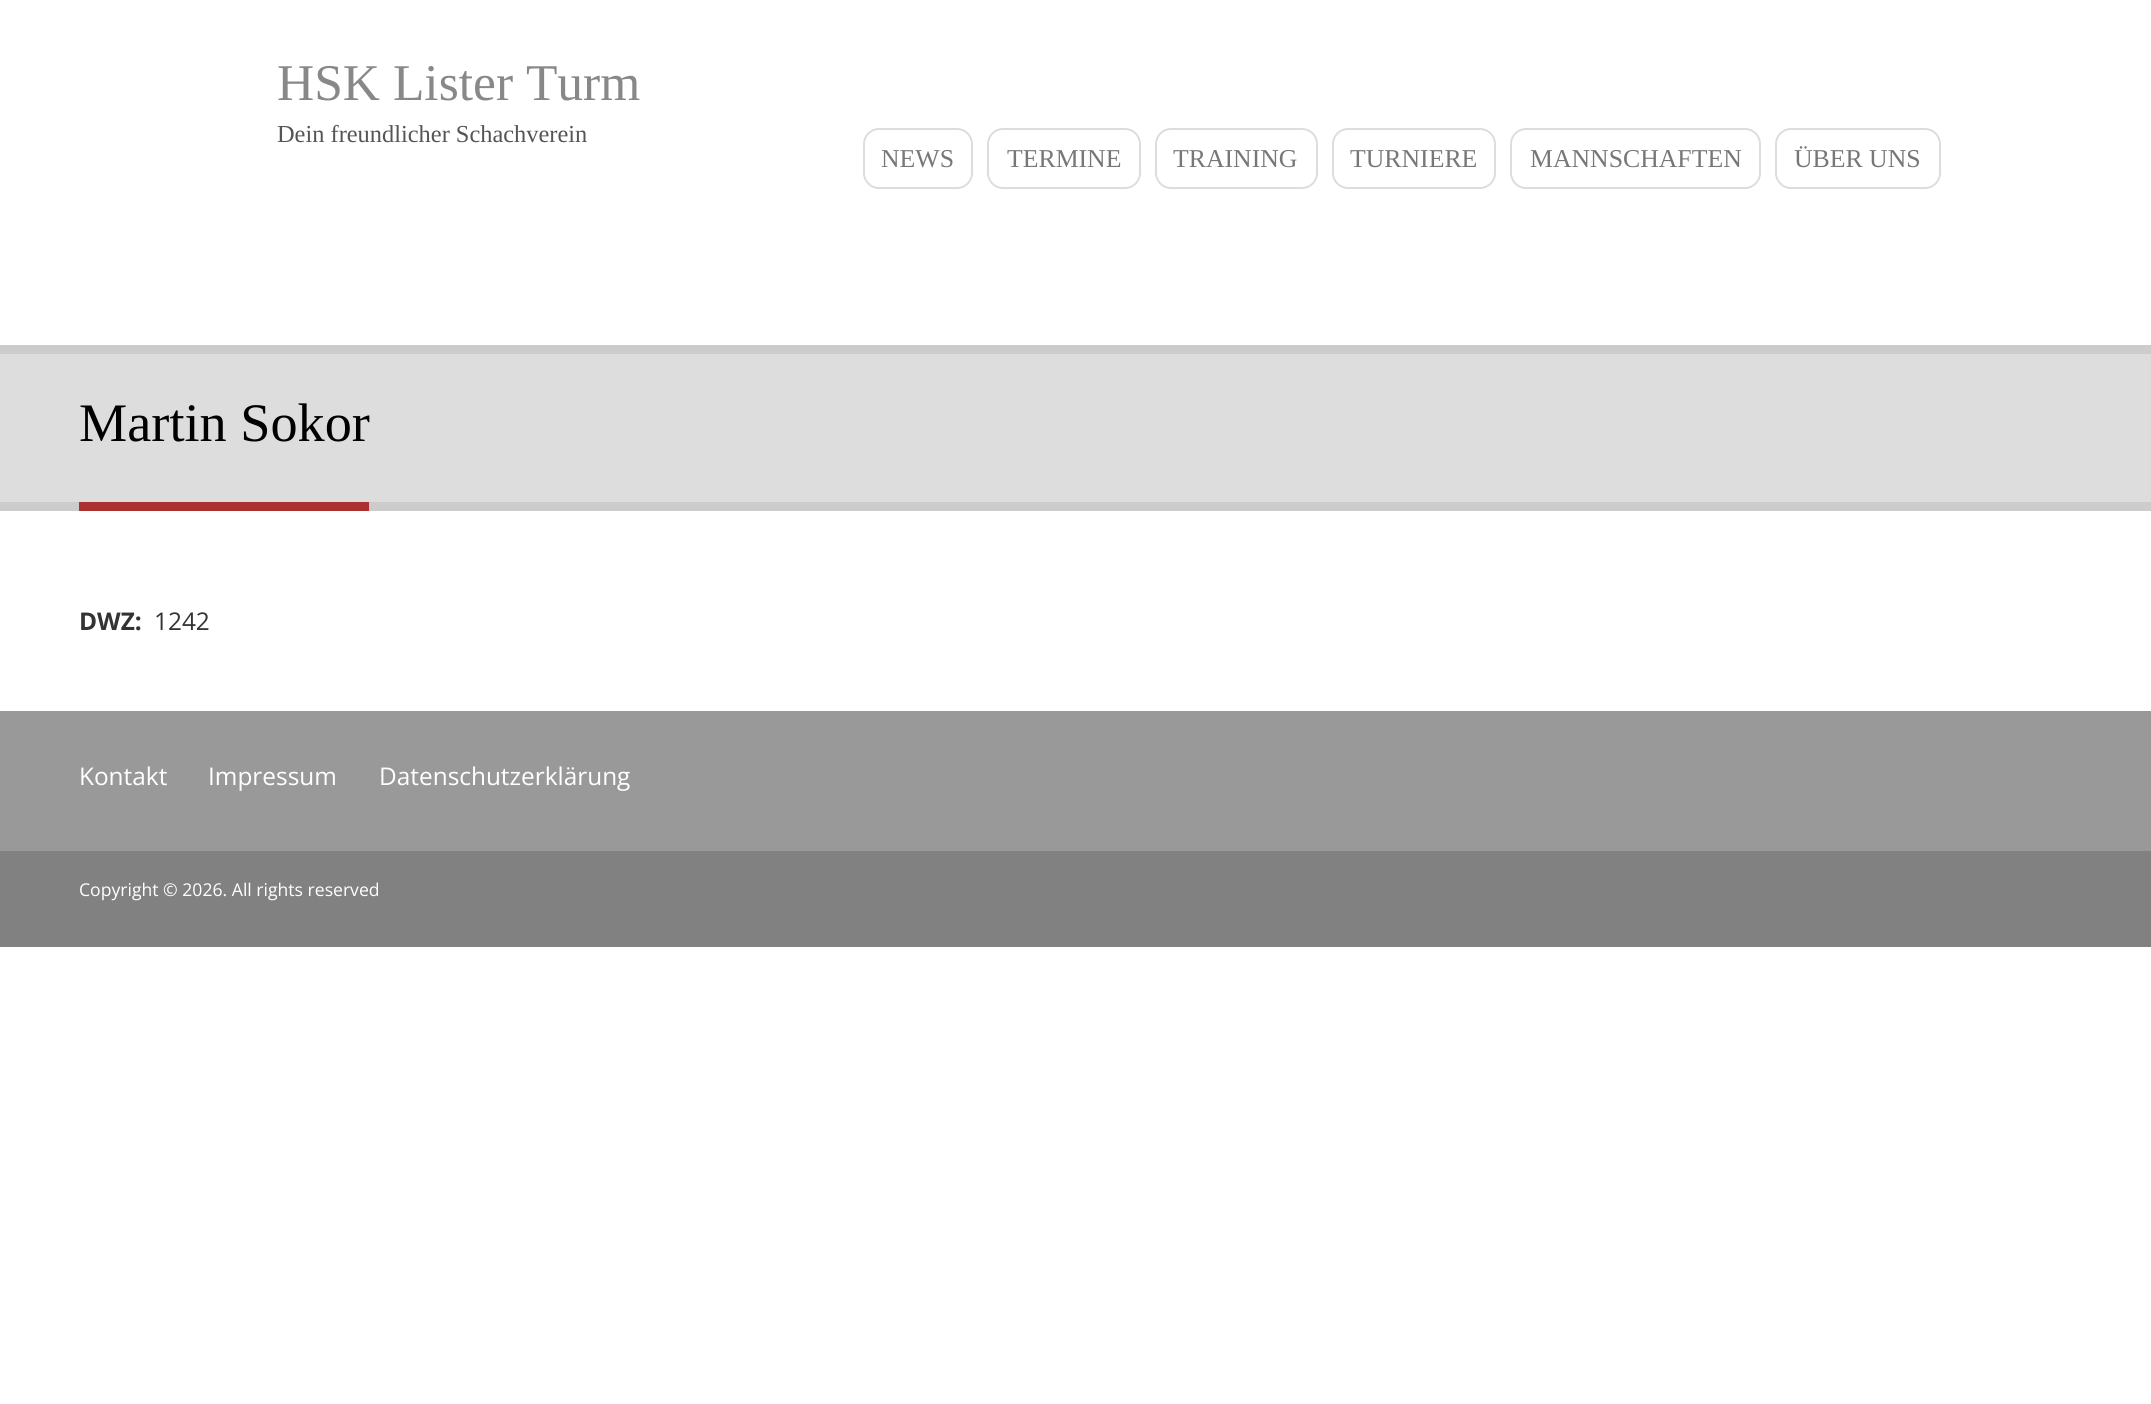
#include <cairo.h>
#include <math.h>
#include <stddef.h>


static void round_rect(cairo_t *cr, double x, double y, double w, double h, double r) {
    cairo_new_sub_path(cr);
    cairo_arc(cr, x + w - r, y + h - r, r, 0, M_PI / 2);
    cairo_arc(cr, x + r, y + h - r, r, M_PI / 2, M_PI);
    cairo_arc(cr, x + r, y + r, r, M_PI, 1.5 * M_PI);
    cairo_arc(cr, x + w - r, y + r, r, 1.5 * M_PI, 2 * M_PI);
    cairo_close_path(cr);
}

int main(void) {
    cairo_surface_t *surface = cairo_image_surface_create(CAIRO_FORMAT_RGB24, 2151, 1404);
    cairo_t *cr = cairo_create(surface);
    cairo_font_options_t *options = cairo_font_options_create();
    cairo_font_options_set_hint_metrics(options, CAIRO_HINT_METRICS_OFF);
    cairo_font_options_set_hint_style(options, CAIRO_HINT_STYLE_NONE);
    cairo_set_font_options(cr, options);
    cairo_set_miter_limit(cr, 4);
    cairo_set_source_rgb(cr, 1, 1, 1);
    cairo_paint(cr);
    cairo_select_font_face(cr, "Liberation Serif", CAIRO_FONT_SLANT_NORMAL, CAIRO_FONT_WEIGHT_NORMAL);
    cairo_set_font_size(cr, 51.5);
    cairo_set_source_rgb(cr, 0.533, 0.533, 0.533);
    cairo_move_to(cr, 277, 100);
    cairo_show_text(cr, "HSK Lister Turm");
    cairo_set_font_size(cr, 24.4);
    cairo_set_source_rgb(cr, 0.333, 0.333, 0.333);
    cairo_move_to(cr, 277, 142);
    cairo_show_text(cr, "Dein freundlicher Schachverein");
    round_rect(cr, 864, 129, 108, 59, 15);
    cairo_set_source_rgb(cr, 0.867, 0.867, 0.867);
    cairo_stroke(cr);
    cairo_set_font_size(cr, 25.75);
    cairo_set_source_rgb(cr, 0.467, 0.467, 0.467);
    cairo_move_to(cr, 881, 167);
    cairo_show_text(cr, "NEWS");
    round_rect(cr, 988, 129, 152, 59, 15);
    cairo_set_source_rgb(cr, 0.867, 0.867, 0.867);
    cairo_stroke(cr);
    cairo_set_source_rgb(cr, 0.467, 0.467, 0.467);
    cairo_move_to(cr, 1007, 167);
    cairo_show_text(cr, "TERMINE");
    round_rect(cr, 1156, 129, 161, 59, 15);
    cairo_set_source_rgb(cr, 0.867, 0.867, 0.867);
    cairo_stroke(cr);
    cairo_set_source_rgb(cr, 0.467, 0.467, 0.467);
    cairo_move_to(cr, 1173, 167);
    cairo_show_text(cr, "TRAINING");
    round_rect(cr, 1333, 129, 162, 59, 15);
    cairo_set_source_rgb(cr, 0.867, 0.867, 0.867);
    cairo_stroke(cr);
    cairo_set_source_rgb(cr, 0.467, 0.467, 0.467);
    cairo_move_to(cr, 1350, 167);
    cairo_show_text(cr, "TURNIERE");
    round_rect(cr, 1511, 129, 249, 59, 15);
    cairo_set_source_rgb(cr, 0.867, 0.867, 0.867);
    cairo_stroke(cr);
    cairo_set_source_rgb(cr, 0.467, 0.467, 0.467);
    cairo_move_to(cr, 1530, 167);
    cairo_show_text(cr, "MANNSCHAFTEN");
    round_rect(cr, 1776, 129, 164, 59, 15);
    cairo_set_source_rgb(cr, 0.867, 0.867, 0.867);
    cairo_stroke(cr);
    cairo_set_source_rgb(cr, 0.467, 0.467, 0.467);
    cairo_move_to(cr, 1794, 167);
    cairo_show_text(cr, "ÜBER UNS");
    cairo_set_source_rgb(cr, 0.867, 0.867, 0.867);
    cairo_rectangle(cr, 0, 354, 2151, 148);
    cairo_fill(cr);
    cairo_set_source_rgb(cr, 0.8, 0.8, 0.8);
    cairo_rectangle(cr, 0, 345, 2151, 9);
    cairo_fill(cr);
    cairo_rectangle(cr, 0, 502, 2151, 9);
    cairo_fill(cr);
    cairo_set_source_rgb(cr, 0.671, 0.192, 0.192);
    cairo_rectangle(cr, 79, 502, 290, 9);
    cairo_fill(cr);
    cairo_set_font_size(cr, 54.25);
    cairo_set_source_rgb(cr, 0, 0, 0);
    cairo_move_to(cr, 79, 441);
    cairo_show_text(cr, "Martin Sokor");
    cairo_select_font_face(cr, "Open Sans", CAIRO_FONT_SLANT_NORMAL, CAIRO_FONT_WEIGHT_BOLD);
    cairo_set_font_size(cr, 24.4);
    cairo_set_source_rgb(cr, 0.2, 0.2, 0.2);
    cairo_move_to(cr, 79, 630);
    cairo_show_text(cr, "DWZ:");
    cairo_select_font_face(cr, "Open Sans", CAIRO_FONT_SLANT_NORMAL, CAIRO_FONT_WEIGHT_NORMAL);
    cairo_move_to(cr, 154, 630);
    cairo_show_text(cr, "1242");
    cairo_set_source_rgb(cr, 0.6, 0.6, 0.6);
    cairo_rectangle(cr, 0, 711, 2151, 140);
    cairo_fill(cr);
    cairo_set_source_rgb(cr, 1, 1, 1);
    cairo_move_to(cr, 79, 785);
    cairo_show_text(cr, "Kontakt");
    cairo_move_to(cr, 208, 785);
    cairo_show_text(cr, "Impressum");
    cairo_move_to(cr, 379, 785);
    cairo_show_text(cr, "Datenschutzerklärung");
    cairo_set_source_rgb(cr, 0.506, 0.506, 0.506);
    cairo_rectangle(cr, 0, 851, 2151, 96);
    cairo_fill(cr);
    cairo_set_font_size(cr, 17.6);
    cairo_set_source_rgb(cr, 1, 1, 1);
    cairo_move_to(cr, 79, 896);
    cairo_show_text(cr, "Copyright © 2026. All rights reserved");
    cairo_surface_write_to_png(surface, "page.png");
    cairo_font_options_destroy(options);
    cairo_destroy(cr);
    cairo_surface_destroy(surface);
    return 0;
}
